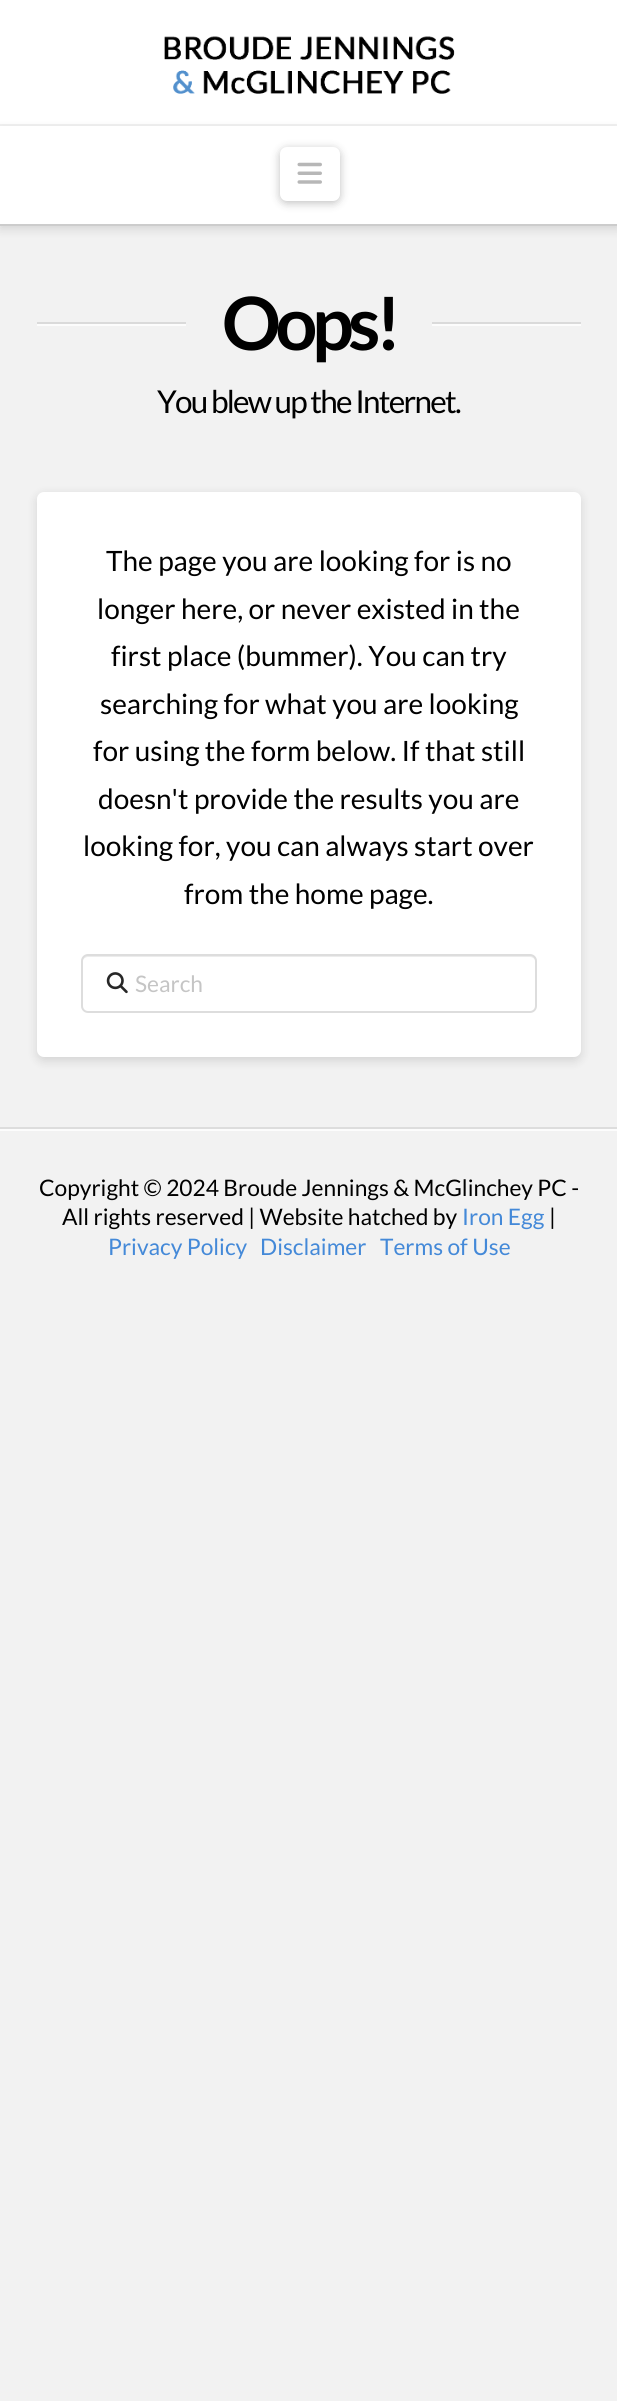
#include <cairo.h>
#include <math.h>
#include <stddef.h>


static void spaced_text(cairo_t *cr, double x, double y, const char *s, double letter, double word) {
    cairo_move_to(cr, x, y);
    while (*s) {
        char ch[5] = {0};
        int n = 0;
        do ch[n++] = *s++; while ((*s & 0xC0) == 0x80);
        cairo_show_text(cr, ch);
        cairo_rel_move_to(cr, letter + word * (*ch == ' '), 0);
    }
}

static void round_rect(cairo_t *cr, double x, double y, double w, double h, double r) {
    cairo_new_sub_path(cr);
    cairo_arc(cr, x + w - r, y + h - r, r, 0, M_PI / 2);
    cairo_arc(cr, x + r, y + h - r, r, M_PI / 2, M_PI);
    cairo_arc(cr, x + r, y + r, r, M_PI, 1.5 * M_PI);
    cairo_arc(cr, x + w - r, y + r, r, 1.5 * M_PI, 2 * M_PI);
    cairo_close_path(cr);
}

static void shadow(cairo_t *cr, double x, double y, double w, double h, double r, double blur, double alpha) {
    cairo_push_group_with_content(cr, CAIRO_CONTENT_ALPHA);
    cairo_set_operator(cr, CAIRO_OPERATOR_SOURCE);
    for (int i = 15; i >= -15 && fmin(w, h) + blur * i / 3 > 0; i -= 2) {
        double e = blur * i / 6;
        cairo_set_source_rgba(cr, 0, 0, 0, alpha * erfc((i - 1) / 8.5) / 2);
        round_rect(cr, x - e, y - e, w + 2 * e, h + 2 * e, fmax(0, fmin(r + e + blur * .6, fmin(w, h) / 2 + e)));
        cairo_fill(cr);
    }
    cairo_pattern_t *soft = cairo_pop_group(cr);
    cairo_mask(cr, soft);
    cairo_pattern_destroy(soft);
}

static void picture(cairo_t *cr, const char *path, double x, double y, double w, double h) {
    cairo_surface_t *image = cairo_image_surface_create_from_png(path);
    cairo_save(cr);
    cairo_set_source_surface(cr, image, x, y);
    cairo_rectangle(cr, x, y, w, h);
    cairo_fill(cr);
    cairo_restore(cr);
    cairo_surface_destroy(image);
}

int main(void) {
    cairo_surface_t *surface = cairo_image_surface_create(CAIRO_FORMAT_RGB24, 617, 2401);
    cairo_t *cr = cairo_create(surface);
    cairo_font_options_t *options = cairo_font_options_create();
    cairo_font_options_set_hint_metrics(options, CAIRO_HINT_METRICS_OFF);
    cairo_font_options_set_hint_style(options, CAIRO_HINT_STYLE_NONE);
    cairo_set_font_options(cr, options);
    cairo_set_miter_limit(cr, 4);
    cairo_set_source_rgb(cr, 0.949, 0.949, 0.949);
    cairo_paint(cr);
    cairo_set_source_rgb(cr, 1, 1, 1);
    cairo_rectangle(cr, 0, 0, 617, 124);
    cairo_fill(cr);
    picture(cr, "img1.png", 164, 36, 291, 58);
    cairo_set_source_rgb(cr, 0, 0, 0);
    shadow(cr, 0, 130, 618, 99, 0, 5, 0.13);
    cairo_set_source_rgb(cr, 1, 1, 1);
    cairo_rectangle(cr, 0, 126, 617, 98);
    cairo_fill(cr);
    cairo_set_source_rgb(cr, 0.8, 0.8, 0.8);
    cairo_rectangle(cr, 0, 224, 617, 2);
    cairo_fill(cr);
    cairo_set_source_rgb(cr, 0, 0, 0);
    shadow(cr, 280, 149, 60, 54, 7, 4.5, 0.25);
    cairo_set_source_rgb(cr, 1, 1, 1);
    round_rect(cr, 280, 147, 60, 54, 7);
    cairo_fill(cr);
    picture(cr, "img2.png", 297, 162, 25, 22);
    cairo_set_source_rgb(cr, 0.988, 0.988, 0.988);
    cairo_rectangle(cr, 37, 324, 149, 2);
    cairo_fill(cr);
    cairo_set_source_rgb(cr, 0.855, 0.855, 0.855);
    cairo_rectangle(cr, 37, 322, 149, 2);
    cairo_fill(cr);
    cairo_select_font_face(cr, "Lato", CAIRO_FONT_SLANT_NORMAL, CAIRO_FONT_WEIGHT_BOLD);
    cairo_set_font_size(cr, 73.5);
    cairo_set_source_rgb(cr, 0, 0, 0);
    spaced_text(cr, 222, 350, "Oops!", -5.25, 0);
    cairo_set_source_rgb(cr, 0.988, 0.988, 0.988);
    cairo_rectangle(cr, 432, 324, 149, 2);
    cairo_fill(cr);
    cairo_set_source_rgb(cr, 0.855, 0.855, 0.855);
    cairo_rectangle(cr, 432, 322, 149, 2);
    cairo_fill(cr);
    cairo_select_font_face(cr, "Lato", CAIRO_FONT_SLANT_NORMAL, CAIRO_FONT_WEIGHT_NORMAL);
    cairo_set_font_size(cr, 31.5);
    cairo_set_source_rgb(cr, 0, 0, 0);
    spaced_text(cr, 157, 413, "You blew up the Internet.", -1.75, 0);
    cairo_set_source_rgb(cr, 0, 0, 0);
    shadow(cr, 37, 495, 544, 566, 7, 5, 0.13);
    cairo_set_source_rgb(cr, 1, 1, 1);
    round_rect(cr, 37, 492, 544, 565, 7);
    cairo_fill(cr);
    cairo_set_font_size(cr, 28);
    cairo_set_source_rgb(cr, 0, 0, 0);
    cairo_move_to(cr, 106, 571);
    cairo_show_text(cr, "The page you are looking for is no");
    cairo_move_to(cr, 97, 619);
    cairo_show_text(cr, "longer here, or never existed in the");
    cairo_move_to(cr, 111, 666);
    cairo_show_text(cr, "first place (bummer). You can try");
    cairo_move_to(cr, 100, 714);
    cairo_show_text(cr, "searching for what you are looking");
    cairo_move_to(cr, 93, 761);
    cairo_show_text(cr, "for using the form below. If that still");
    cairo_move_to(cr, 98, 809);
    cairo_show_text(cr, "doesn't provide the results you are");
    cairo_move_to(cr, 83, 856);
    cairo_show_text(cr, "looking for, you can always start over");
    cairo_move_to(cr, 184, 904);
    cairo_show_text(cr, "from the home page.");
    cairo_set_source_rgb(cr, 0.925, 0.925, 0.925);
    cairo_new_path(cr);
    cairo_move_to(cr, 88, 957);
    cairo_line_to(cr, 530, 957);
    cairo_curve_to(cr, 533, 957, 536, 960, 536, 962);
    cairo_curve_to(cr, 536, 959, 534, 956, 531, 956);
    cairo_line_to(cr, 87, 956);
    cairo_curve_to(cr, 84, 956, 82, 959, 82, 962);
    cairo_curve_to(cr, 82, 960, 85, 957, 88, 957);
    cairo_close_path(cr);
    cairo_fill(cr);
    round_rect(cr, 82, 955, 454, 57, 6);
    cairo_set_source_rgb(cr, 0.867, 0.867, 0.867);
    cairo_stroke(cr);
    picture(cr, "img3.png", 106, 972, 22, 22);
    cairo_set_font_size(cr, 22.75);
    cairo_set_source_rgb(cr, 0.773, 0.773, 0.773);
    cairo_move_to(cr, 135, 992);
    cairo_show_text(cr, "Search");
    cairo_set_source_rgb(cr, 0.988, 0.988, 0.988);
    cairo_rectangle(cr, 0, 1129, 617, 2);
    cairo_fill(cr);
    cairo_set_source_rgb(cr, 0.867, 0.867, 0.867);
    cairo_rectangle(cr, 0, 1127, 617, 2);
    cairo_fill(cr);
    cairo_set_source_rgb(cr, 0, 0, 0);
    cairo_move_to(cr, 39, 1196);
    cairo_show_text(cr, "Copyright © 2024 Broude Jennings & McGlinchey PC -");
    cairo_move_to(cr, 62, 1225);
    cairo_show_text(cr, "All rights reserved | Website hatched by");
    cairo_set_source_rgb(cr, 0.267, 0.537, 0.847);
    cairo_move_to(cr, 462, 1225);
    cairo_show_text(cr, "Iron Egg");
    cairo_set_source_rgb(cr, 0, 0, 0);
    cairo_move_to(cr, 549, 1225);
    cairo_show_text(cr, "|");
    cairo_set_source_rgb(cr, 0.267, 0.537, 0.847);
    cairo_move_to(cr, 108, 1255);
    cairo_show_text(cr, "Privacy Policy");
    cairo_move_to(cr, 260, 1255);
    cairo_show_text(cr, "Disclaimer");
    cairo_move_to(cr, 380, 1255);
    cairo_show_text(cr, "Terms of Use");
    cairo_surface_write_to_png(surface, "page.png");
    cairo_font_options_destroy(options);
    cairo_destroy(cr);
    cairo_surface_destroy(surface);
    return 0;
}
